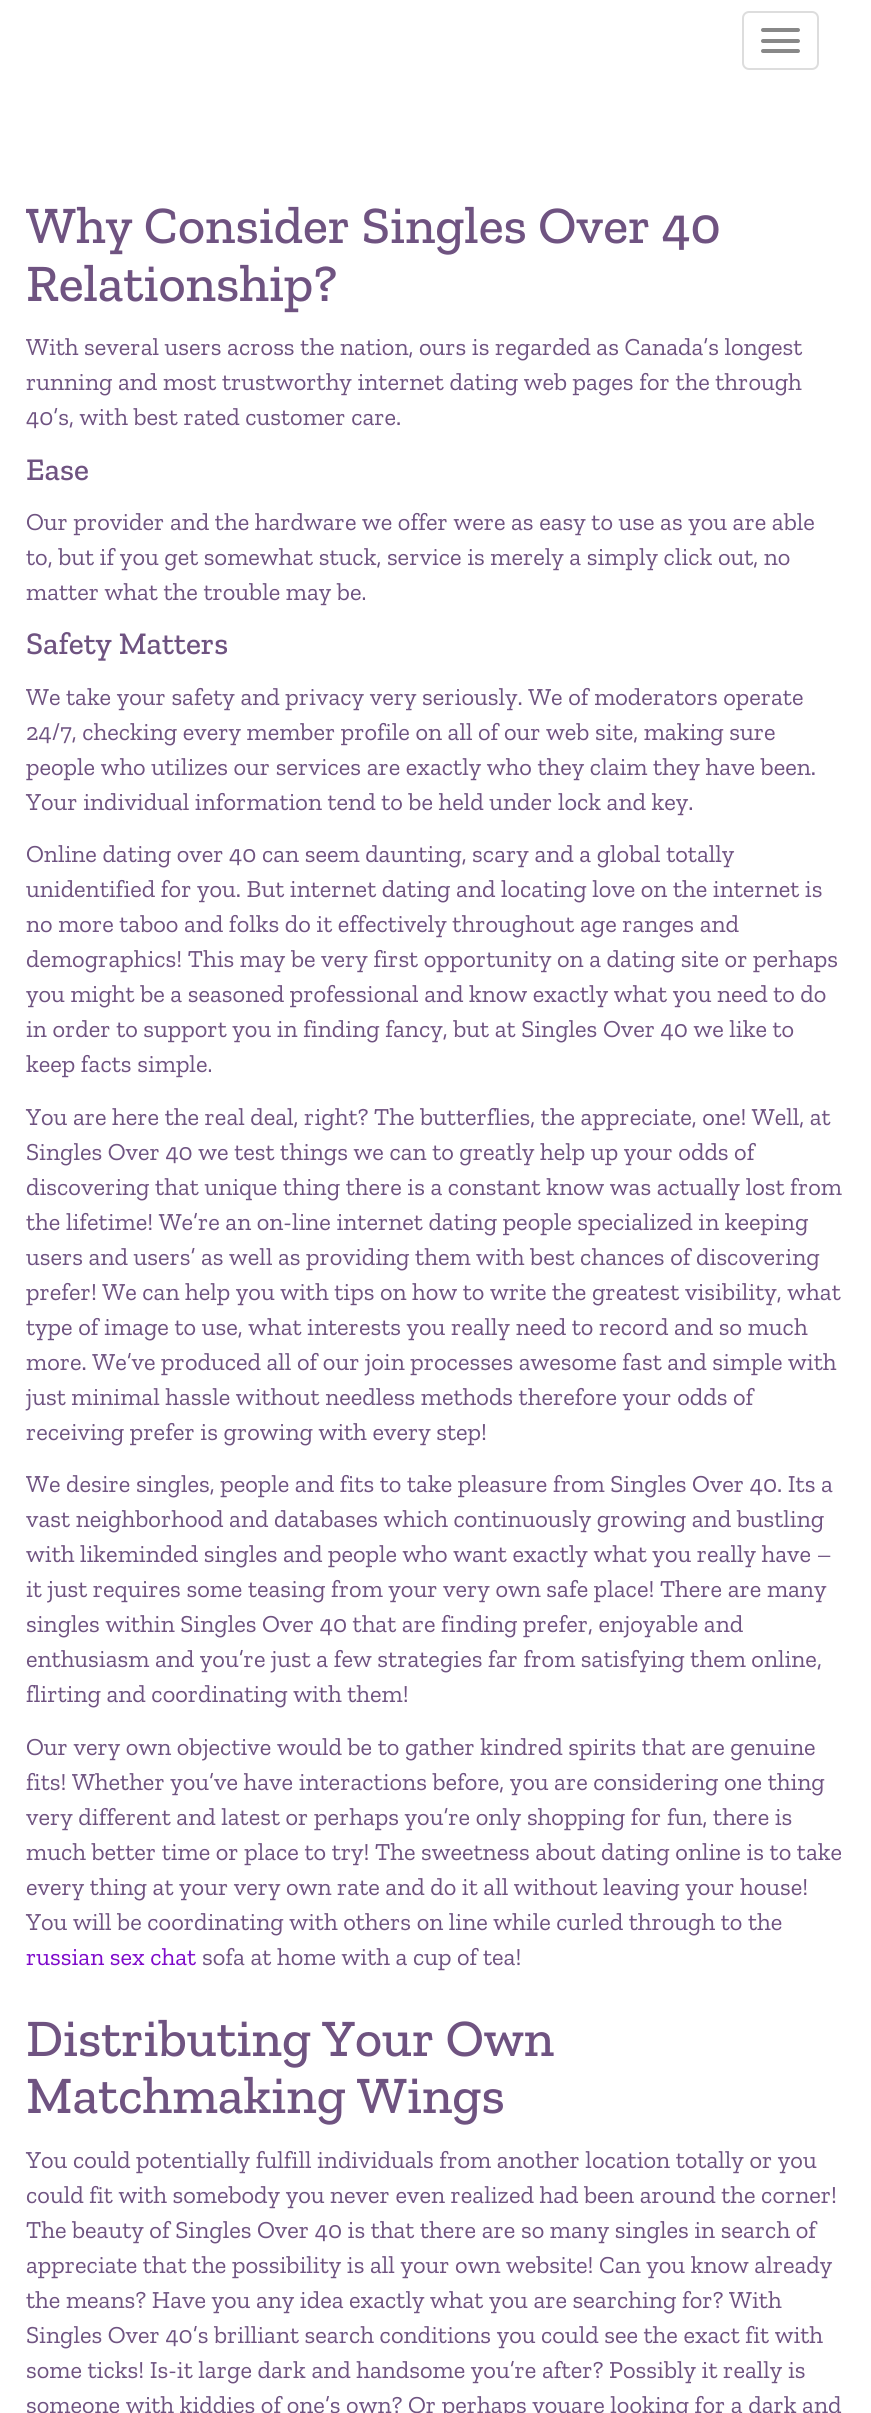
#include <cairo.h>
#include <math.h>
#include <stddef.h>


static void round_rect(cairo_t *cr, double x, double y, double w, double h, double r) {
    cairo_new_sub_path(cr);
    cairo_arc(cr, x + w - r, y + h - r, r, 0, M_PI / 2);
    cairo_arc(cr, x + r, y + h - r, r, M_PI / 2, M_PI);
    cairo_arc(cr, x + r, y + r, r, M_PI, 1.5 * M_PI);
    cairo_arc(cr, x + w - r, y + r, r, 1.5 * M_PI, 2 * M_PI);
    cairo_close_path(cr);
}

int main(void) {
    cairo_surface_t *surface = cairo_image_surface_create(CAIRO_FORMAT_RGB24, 871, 2413);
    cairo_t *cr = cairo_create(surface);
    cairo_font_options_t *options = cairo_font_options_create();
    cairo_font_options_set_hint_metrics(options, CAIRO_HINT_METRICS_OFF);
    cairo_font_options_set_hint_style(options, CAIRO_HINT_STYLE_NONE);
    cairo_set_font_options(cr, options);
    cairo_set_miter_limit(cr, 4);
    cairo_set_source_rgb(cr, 1, 1, 1);
    cairo_paint(cr);
    round_rect(cr, 743, 12, 75, 57, 6);
    cairo_set_source_rgb(cr, 0.867, 0.867, 0.867);
    cairo_stroke(cr);
    cairo_set_source_rgb(cr, 0.533, 0.533, 0.533);
    round_rect(cr, 761, 28, 39, 4, 2);
    cairo_fill(cr);
    round_rect(cr, 761, 39, 39, 4, 2);
    cairo_fill(cr);
    round_rect(cr, 761, 49, 39, 4, 2);
    cairo_fill(cr);
    cairo_select_font_face(cr, "Zilla Slab Medium", CAIRO_FONT_SLANT_NORMAL, CAIRO_FONT_WEIGHT_NORMAL);
    cairo_set_font_size(cr, 52.5);
    cairo_set_source_rgb(cr, 0.435, 0.325, 0.506);
    cairo_move_to(cr, 26, 243);
    cairo_show_text(cr, "Why Consider Singles Over 40");
    cairo_move_to(cr, 26, 301);
    cairo_show_text(cr, "Relationship?");
    cairo_select_font_face(cr, "Zilla Slab", CAIRO_FONT_SLANT_NORMAL, CAIRO_FONT_WEIGHT_NORMAL);
    cairo_set_font_size(cr, 24.5);
    cairo_move_to(cr, 26, 355);
    cairo_show_text(cr, "With several users across the nation, ours is regarded as Canada’s longest");
    cairo_move_to(cr, 26, 390);
    cairo_show_text(cr, "running and most trustworthy internet dating web pages for the through");
    cairo_move_to(cr, 26, 425);
    cairo_show_text(cr, "40’s, with best rated customer care.");
    cairo_select_font_face(cr, "Zilla Slab Medium", CAIRO_FONT_SLANT_NORMAL, CAIRO_FONT_WEIGHT_NORMAL);
    cairo_set_font_size(cr, 31.5);
    cairo_move_to(cr, 26, 480);
    cairo_show_text(cr, "Ease");
    cairo_select_font_face(cr, "Zilla Slab", CAIRO_FONT_SLANT_NORMAL, CAIRO_FONT_WEIGHT_NORMAL);
    cairo_set_font_size(cr, 24.5);
    cairo_move_to(cr, 26, 530);
    cairo_show_text(cr, "Our provider and the hardware we offer were as easy to use as you are able");
    cairo_move_to(cr, 26, 565);
    cairo_show_text(cr, "to, but if you get somewhat stuck, service is merely a simply click out, no");
    cairo_move_to(cr, 26, 600);
    cairo_show_text(cr, "matter what the trouble may be.");
    cairo_select_font_face(cr, "Zilla Slab Medium", CAIRO_FONT_SLANT_NORMAL, CAIRO_FONT_WEIGHT_NORMAL);
    cairo_set_font_size(cr, 31.5);
    cairo_move_to(cr, 26, 654);
    cairo_show_text(cr, "Safety Matters");
    cairo_select_font_face(cr, "Zilla Slab", CAIRO_FONT_SLANT_NORMAL, CAIRO_FONT_WEIGHT_NORMAL);
    cairo_set_font_size(cr, 24.5);
    cairo_move_to(cr, 26, 705);
    cairo_show_text(cr, "We take your safety and privacy very seriously. We of moderators operate");
    cairo_move_to(cr, 26, 740);
    cairo_show_text(cr, "24/7, checking every member profile on all of our web site, making sure");
    cairo_move_to(cr, 26, 775);
    cairo_show_text(cr, "people who utilizes our services are exactly who they claim they have been.");
    cairo_move_to(cr, 26, 810);
    cairo_show_text(cr, "Your individual information tend to be held under lock and key.");
    cairo_move_to(cr, 26, 862);
    cairo_show_text(cr, "Online dating over 40 can seem daunting, scary and a global totally");
    cairo_move_to(cr, 26, 897);
    cairo_show_text(cr, "unidentified for you. But internet dating and locating love on the internet is");
    cairo_move_to(cr, 26, 932);
    cairo_show_text(cr, "no more taboo and folks do it effectively throughout age ranges and");
    cairo_move_to(cr, 26, 967);
    cairo_show_text(cr, "demographics! This may be very first opportunity on a dating site or perhaps");
    cairo_move_to(cr, 26, 1002);
    cairo_show_text(cr, "you might be a seasoned professional and know exactly what you need to do");
    cairo_move_to(cr, 26, 1037);
    cairo_show_text(cr, "in order to support you in finding fancy, but at Singles Over 40 we like to");
    cairo_move_to(cr, 26, 1072);
    cairo_show_text(cr, "keep facts simple.");
    cairo_move_to(cr, 26, 1125);
    cairo_show_text(cr, "You are here the real deal, right? The butterflies, the appreciate, one! Well, at");
    cairo_move_to(cr, 26, 1160);
    cairo_show_text(cr, "Singles Over 40 we test things we can to greatly help up your odds of");
    cairo_move_to(cr, 26, 1195);
    cairo_show_text(cr, "discovering that unique thing there is a constant know was actually lost from");
    cairo_move_to(cr, 26, 1230);
    cairo_show_text(cr, "the lifetime! We’re an on-line internet dating people specialized in keeping");
    cairo_move_to(cr, 26, 1265);
    cairo_show_text(cr, "users and users’ as well as providing them with best chances of discovering");
    cairo_move_to(cr, 26, 1300);
    cairo_show_text(cr, "prefer! We can help you with tips on how to write the greatest visibility, what");
    cairo_move_to(cr, 26, 1335);
    cairo_show_text(cr, "type of image to use, what interests you really need to record and so much");
    cairo_move_to(cr, 26, 1370);
    cairo_show_text(cr, "more. We’ve produced all of our join processes awesome fast and simple with");
    cairo_move_to(cr, 26, 1405);
    cairo_show_text(cr, "just minimal hassle without needless methods therefore your odds of");
    cairo_move_to(cr, 26, 1440);
    cairo_show_text(cr, "receiving prefer is growing with every step!");
    cairo_move_to(cr, 26, 1492);
    cairo_show_text(cr, "We desire singles, people and fits to take pleasure from Singles Over 40. Its a");
    cairo_move_to(cr, 26, 1527);
    cairo_show_text(cr, "vast neighborhood and databases which continuously growing and bustling");
    cairo_move_to(cr, 26, 1562);
    cairo_show_text(cr, "with likeminded singles and people who want exactly what you really have –");
    cairo_move_to(cr, 26, 1597);
    cairo_show_text(cr, "it just requires some teasing from your very own safe place! There are many");
    cairo_move_to(cr, 26, 1632);
    cairo_show_text(cr, "singles within Singles Over 40 that are finding prefer, enjoyable and");
    cairo_move_to(cr, 26, 1667);
    cairo_show_text(cr, "enthusiasm and you’re just a few strategies far from satisfying them online,");
    cairo_move_to(cr, 26, 1702);
    cairo_show_text(cr, "flirting and coordinating with them!");
    cairo_move_to(cr, 26, 1755);
    cairo_show_text(cr, "Our very own objective would be to gather kindred spirits that are genuine");
    cairo_move_to(cr, 26, 1790);
    cairo_show_text(cr, "fits! Whether you’ve have interactions before, you are considering one thing");
    cairo_move_to(cr, 26, 1825);
    cairo_show_text(cr, "very different and latest or perhaps you’re only shopping for fun, there is");
    cairo_move_to(cr, 26, 1860);
    cairo_show_text(cr, "much better time or place to try! The sweetness about dating online is to take");
    cairo_move_to(cr, 26, 1895);
    cairo_show_text(cr, "every thing at your very own rate and do it all without leaving your house!");
    cairo_move_to(cr, 26, 1930);
    cairo_show_text(cr, "You will be coordinating with others on line while curled through to the");
    cairo_set_source_rgb(cr, 0.494, 0.039, 0.792);
    cairo_move_to(cr, 26, 1965);
    cairo_show_text(cr, "russian sex chat");
    cairo_set_source_rgb(cr, 0.435, 0.325, 0.506);
    cairo_move_to(cr, 202, 1965);
    cairo_show_text(cr, "sofa at home with a cup of tea!");
    cairo_select_font_face(cr, "Zilla Slab Medium", CAIRO_FONT_SLANT_NORMAL, CAIRO_FONT_WEIGHT_NORMAL);
    cairo_set_font_size(cr, 52.5);
    cairo_move_to(cr, 26, 2056);
    cairo_show_text(cr, "Distributing Your Own");
    cairo_move_to(cr, 26, 2113);
    cairo_show_text(cr, "Matchmaking Wings");
    cairo_select_font_face(cr, "Zilla Slab", CAIRO_FONT_SLANT_NORMAL, CAIRO_FONT_WEIGHT_NORMAL);
    cairo_set_font_size(cr, 24.5);
    cairo_move_to(cr, 26, 2168);
    cairo_show_text(cr, "You could potentially fulfill individuals from another location totally or you");
    cairo_move_to(cr, 26, 2203);
    cairo_show_text(cr, "could fit with somebody you never even realized had been around the corner!");
    cairo_move_to(cr, 26, 2238);
    cairo_show_text(cr, "The beauty of Singles Over 40 is that there are so many singles in search of");
    cairo_move_to(cr, 26, 2273);
    cairo_show_text(cr, "appreciate that the possibility is all your own website! Can you know already");
    cairo_move_to(cr, 26, 2308);
    cairo_show_text(cr, "the means? Have you any idea exactly what you are searching for? With");
    cairo_move_to(cr, 26, 2343);
    cairo_show_text(cr, "Singles Over 40’s brilliant search conditions you could see the exact fit with");
    cairo_move_to(cr, 26, 2378);
    cairo_show_text(cr, "some ticks! Is-it large dark and handsome you’re after? Possibly it really is");
    cairo_move_to(cr, 26, 2413);
    cairo_show_text(cr, "someone with kiddies of one’s own? Or perhaps youare looking for a dark and");
    cairo_surface_write_to_png(surface, "page.png");
    cairo_font_options_destroy(options);
    cairo_destroy(cr);
    cairo_surface_destroy(surface);
    return 0;
}
